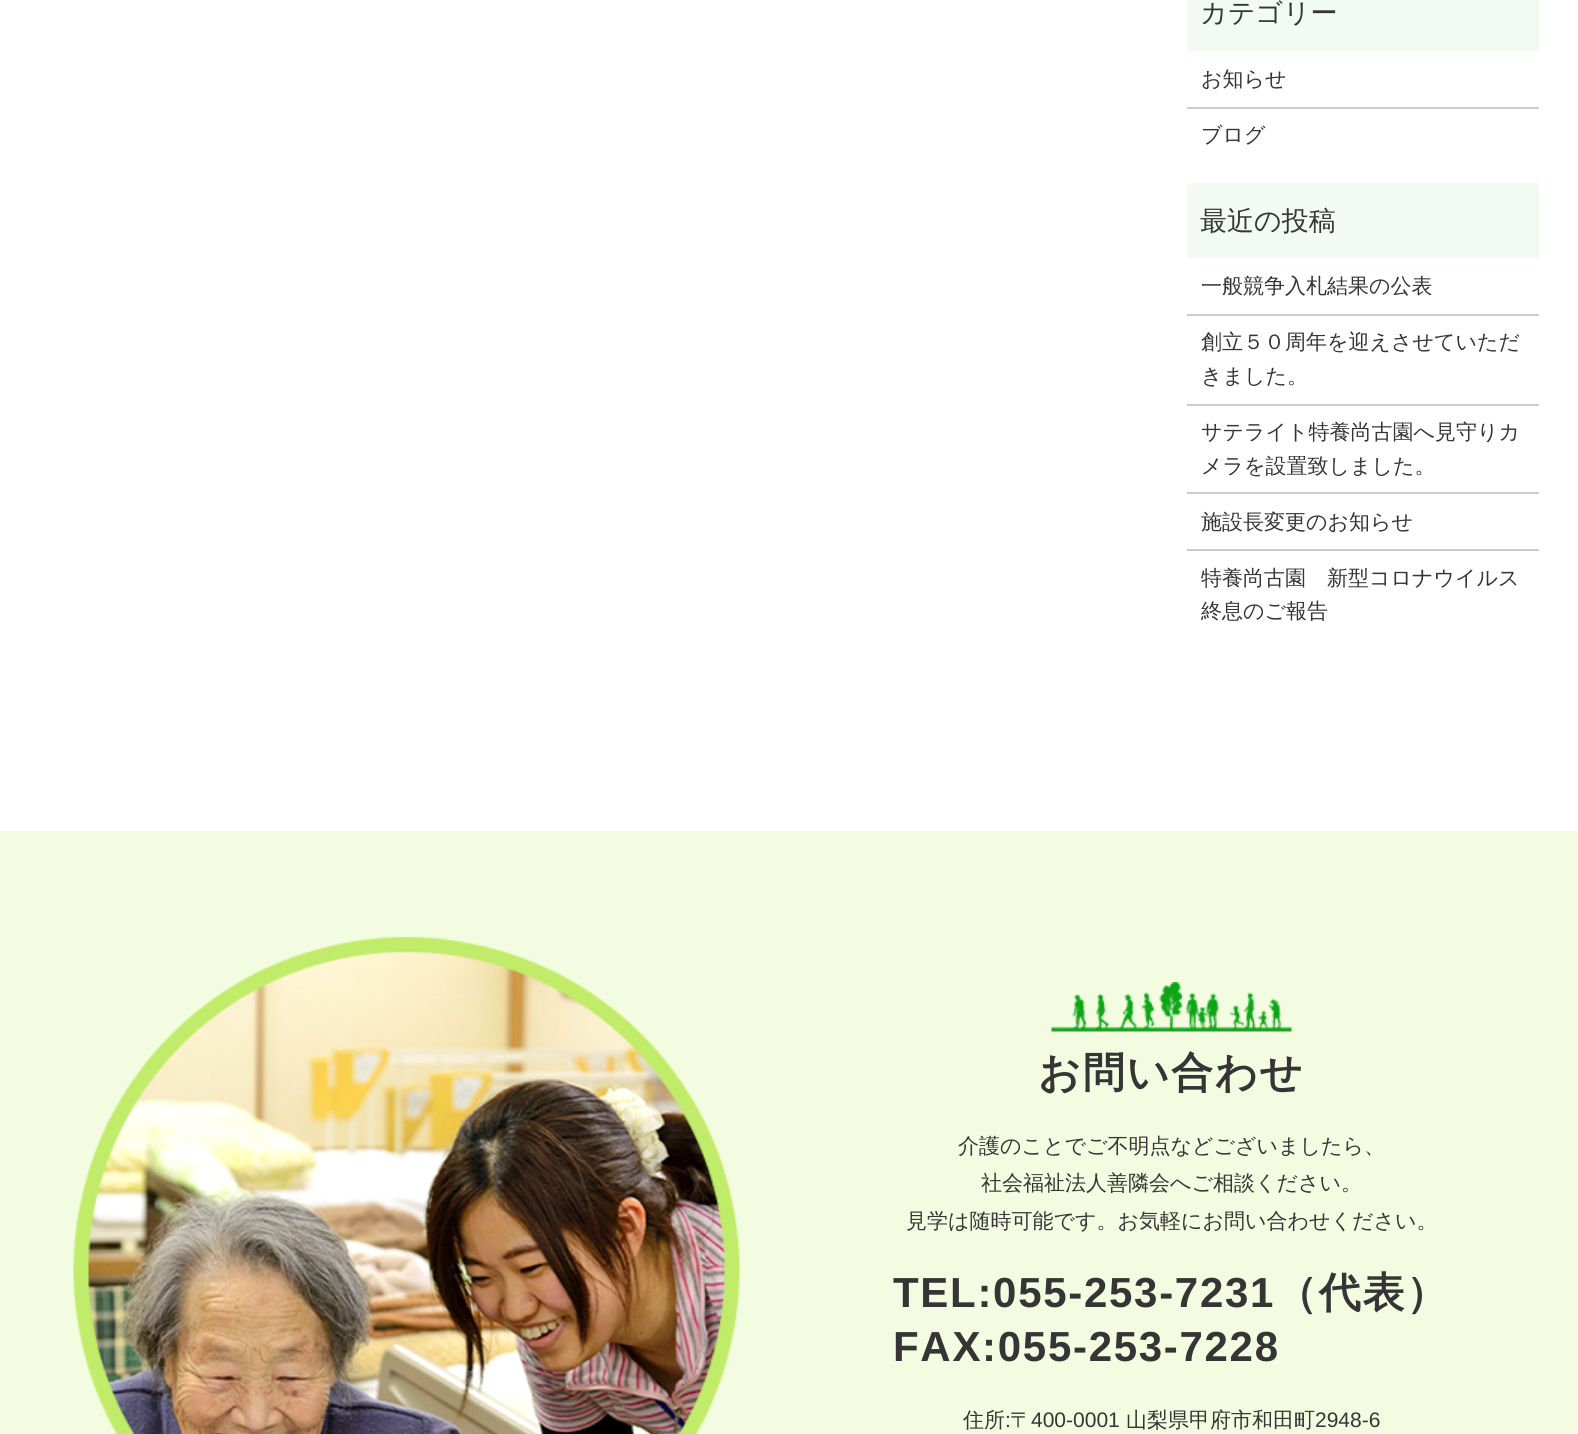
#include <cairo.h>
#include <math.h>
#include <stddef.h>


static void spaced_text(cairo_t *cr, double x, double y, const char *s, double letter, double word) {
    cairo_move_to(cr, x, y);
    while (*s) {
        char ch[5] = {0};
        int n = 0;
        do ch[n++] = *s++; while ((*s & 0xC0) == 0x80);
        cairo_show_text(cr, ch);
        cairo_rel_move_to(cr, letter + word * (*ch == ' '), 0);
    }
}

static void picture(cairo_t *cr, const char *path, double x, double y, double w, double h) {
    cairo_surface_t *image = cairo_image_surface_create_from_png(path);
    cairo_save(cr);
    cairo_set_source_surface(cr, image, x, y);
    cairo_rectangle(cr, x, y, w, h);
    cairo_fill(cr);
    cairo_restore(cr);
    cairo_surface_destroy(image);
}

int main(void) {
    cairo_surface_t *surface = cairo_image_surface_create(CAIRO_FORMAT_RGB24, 1578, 1434);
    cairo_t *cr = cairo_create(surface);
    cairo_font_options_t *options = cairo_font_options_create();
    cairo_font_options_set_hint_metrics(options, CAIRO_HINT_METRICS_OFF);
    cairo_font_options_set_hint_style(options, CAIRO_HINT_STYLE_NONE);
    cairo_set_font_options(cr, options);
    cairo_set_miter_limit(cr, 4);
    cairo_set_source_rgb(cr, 1, 1, 1);
    cairo_paint(cr);
    cairo_set_source_rgb(cr, 0.953, 0.98, 0.953);
    cairo_rectangle(cr, 1187, 0, 352, 51);
    cairo_fill(cr);
    cairo_select_font_face(cr, "WenQuanYi Zen Hei Medium", CAIRO_FONT_SLANT_NORMAL, CAIRO_FONT_WEIGHT_NORMAL);
    cairo_set_font_size(cr, 27);
    cairo_set_source_rgb(cr, 0.208, 0.208, 0.208);
    cairo_move_to(cr, 1200, 22);
    cairo_show_text(cr, "カテゴリー");
    cairo_set_source_rgb(cr, 0.8, 0.8, 0.8);
    cairo_rectangle(cr, 1187, 107, 352, 2);
    cairo_fill(cr);
    cairo_set_font_size(cr, 21);
    cairo_set_source_rgb(cr, 0.208, 0.208, 0.208);
    cairo_move_to(cr, 1201, 86);
    cairo_show_text(cr, "お知らせ");
    cairo_move_to(cr, 1201, 142);
    cairo_show_text(cr, "ブログ");
    cairo_set_source_rgb(cr, 0.953, 0.98, 0.953);
    cairo_rectangle(cr, 1187, 183, 352, 75);
    cairo_fill(cr);
    cairo_set_font_size(cr, 27);
    cairo_set_source_rgb(cr, 0.208, 0.208, 0.208);
    cairo_move_to(cr, 1200, 230);
    cairo_show_text(cr, "最近の投稿");
    cairo_set_source_rgb(cr, 0.8, 0.8, 0.8);
    cairo_rectangle(cr, 1187, 314, 352, 2);
    cairo_fill(cr);
    cairo_set_font_size(cr, 21);
    cairo_set_source_rgb(cr, 0.208, 0.208, 0.208);
    cairo_move_to(cr, 1201, 293);
    cairo_show_text(cr, "一般競争入札結果の公表");
    cairo_set_source_rgb(cr, 0.8, 0.8, 0.8);
    cairo_rectangle(cr, 1187, 404, 352, 2);
    cairo_fill(cr);
    cairo_set_source_rgb(cr, 0.208, 0.208, 0.208);
    cairo_move_to(cr, 1201, 349);
    cairo_show_text(cr, "創立５０周年を迎えさせていただ");
    cairo_move_to(cr, 1201, 383);
    cairo_show_text(cr, "きました。");
    cairo_set_source_rgb(cr, 0.8, 0.8, 0.8);
    cairo_rectangle(cr, 1187, 492, 352, 2);
    cairo_fill(cr);
    cairo_set_source_rgb(cr, 0.208, 0.208, 0.208);
    cairo_move_to(cr, 1201, 439);
    cairo_show_text(cr, "サテライト特養尚古園へ見守りカ");
    cairo_move_to(cr, 1201, 473);
    cairo_show_text(cr, "メラを設置致しました。");
    cairo_set_source_rgb(cr, 0.8, 0.8, 0.8);
    cairo_rectangle(cr, 1187, 549, 352, 2);
    cairo_fill(cr);
    cairo_set_source_rgb(cr, 0.208, 0.208, 0.208);
    cairo_move_to(cr, 1201, 529);
    cairo_show_text(cr, "施設長変更のお知らせ");
    cairo_move_to(cr, 1201, 585);
    cairo_show_text(cr, "特養尚古園　新型コロナウイルス");
    cairo_move_to(cr, 1201, 618);
    cairo_show_text(cr, "終息のご報告");
    cairo_set_source_rgb(cr, 0.953, 0.988, 0.878);
    cairo_rectangle(cr, 0, 831, 1578, 603);
    cairo_fill(cr);
    picture(cr, "img1.png", 73, 936, 667, 498);
    picture(cr, "img2.png", 1051, 982, 241, 50);
    cairo_select_font_face(cr, "WenQuanYi Zen Hei", CAIRO_FONT_SLANT_NORMAL, CAIRO_FONT_WEIGHT_BOLD);
    cairo_set_font_size(cr, 42);
    cairo_set_source_rgb(cr, 0.208, 0.208, 0.208);
    spaced_text(cr, 1038, 1087, "お問い合わせ", 1.7, 0);
    cairo_select_font_face(cr, "WenQuanYi Zen Hei Medium", CAIRO_FONT_SLANT_NORMAL, CAIRO_FONT_WEIGHT_NORMAL);
    cairo_set_font_size(cr, 21);
    cairo_move_to(cr, 958, 1153);
    cairo_show_text(cr, "介護のことでご不明点などございましたら、");
    cairo_move_to(cr, 981, 1190);
    cairo_show_text(cr, "社会福祉法人善隣会へご相談ください。");
    cairo_move_to(cr, 906, 1228);
    cairo_show_text(cr, "見学は随時可能です。お気軽にお問い合わせください。");
    cairo_select_font_face(cr, "Liberation Sans", CAIRO_FONT_SLANT_NORMAL, CAIRO_FONT_WEIGHT_BOLD);
    cairo_set_font_size(cr, 42);
    spaced_text(cr, 893, 1307, "TEL:055-253-7231", 1.7, 0);
    cairo_select_font_face(cr, "WenQuanYi Zen Hei", CAIRO_FONT_SLANT_NORMAL, CAIRO_FONT_WEIGHT_BOLD);
    spaced_text(cr, 1275, 1307, "（代表）", 1.7, 0);
    cairo_select_font_face(cr, "Liberation Sans", CAIRO_FONT_SLANT_NORMAL, CAIRO_FONT_WEIGHT_BOLD);
    spaced_text(cr, 893, 1361, "FAX:055-253-7228", 1.7, 0);
    cairo_select_font_face(cr, "WenQuanYi Zen Hei Medium", CAIRO_FONT_SLANT_NORMAL, CAIRO_FONT_WEIGHT_NORMAL);
    cairo_set_font_size(cr, 21);
    cairo_move_to(cr, 963, 1427);
    cairo_show_text(cr, "住所");
    cairo_select_font_face(cr, "Liberation Sans", CAIRO_FONT_SLANT_NORMAL, CAIRO_FONT_WEIGHT_NORMAL);
    cairo_move_to(cr, 1005, 1427);
    cairo_show_text(cr, ":");
    cairo_select_font_face(cr, "WenQuanYi Zen Hei Medium", CAIRO_FONT_SLANT_NORMAL, CAIRO_FONT_WEIGHT_NORMAL);
    cairo_move_to(cr, 1010, 1427);
    cairo_show_text(cr, "〒");
    cairo_select_font_face(cr, "Liberation Sans", CAIRO_FONT_SLANT_NORMAL, CAIRO_FONT_WEIGHT_NORMAL);
    cairo_move_to(cr, 1031, 1427);
    cairo_show_text(cr, "400-0001");
    cairo_select_font_face(cr, "WenQuanYi Zen Hei Medium", CAIRO_FONT_SLANT_NORMAL, CAIRO_FONT_WEIGHT_NORMAL);
    cairo_move_to(cr, 1126, 1427);
    cairo_show_text(cr, "山梨県甲府市和田町");
    cairo_select_font_face(cr, "Liberation Sans", CAIRO_FONT_SLANT_NORMAL, CAIRO_FONT_WEIGHT_NORMAL);
    cairo_move_to(cr, 1315, 1427);
    cairo_show_text(cr, "2948-6");
    cairo_surface_write_to_png(surface, "page.png");
    cairo_font_options_destroy(options);
    cairo_destroy(cr);
    cairo_surface_destroy(surface);
    return 0;
}
